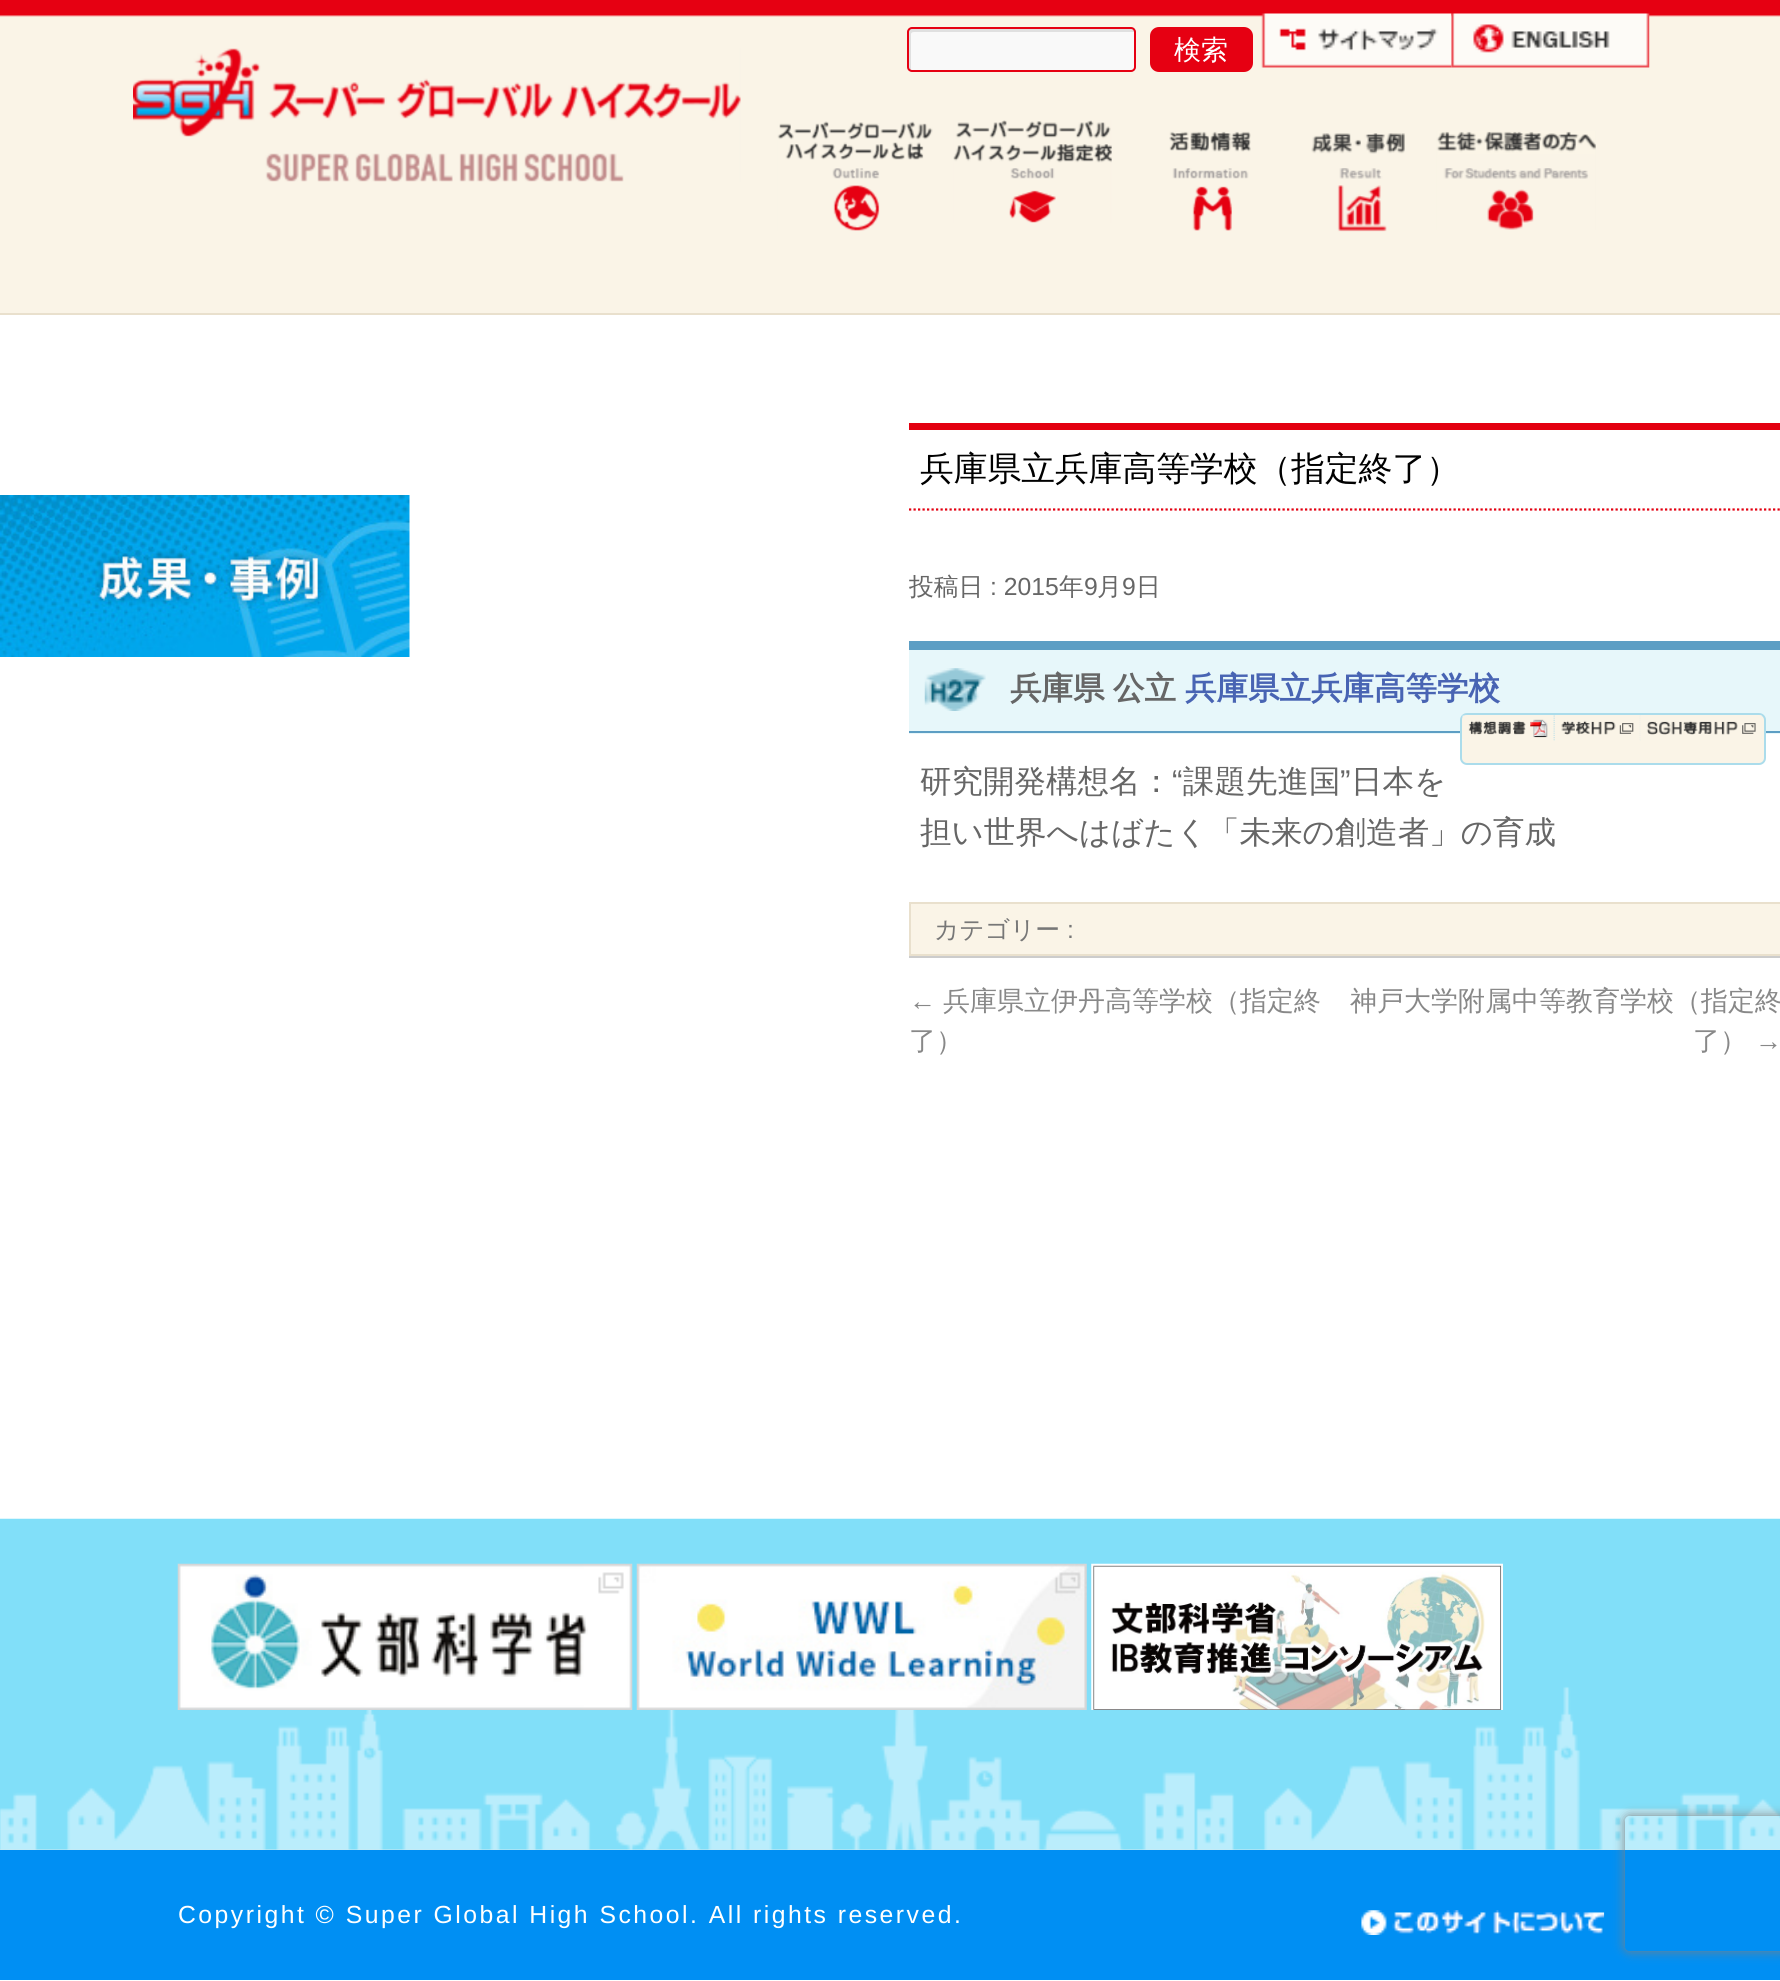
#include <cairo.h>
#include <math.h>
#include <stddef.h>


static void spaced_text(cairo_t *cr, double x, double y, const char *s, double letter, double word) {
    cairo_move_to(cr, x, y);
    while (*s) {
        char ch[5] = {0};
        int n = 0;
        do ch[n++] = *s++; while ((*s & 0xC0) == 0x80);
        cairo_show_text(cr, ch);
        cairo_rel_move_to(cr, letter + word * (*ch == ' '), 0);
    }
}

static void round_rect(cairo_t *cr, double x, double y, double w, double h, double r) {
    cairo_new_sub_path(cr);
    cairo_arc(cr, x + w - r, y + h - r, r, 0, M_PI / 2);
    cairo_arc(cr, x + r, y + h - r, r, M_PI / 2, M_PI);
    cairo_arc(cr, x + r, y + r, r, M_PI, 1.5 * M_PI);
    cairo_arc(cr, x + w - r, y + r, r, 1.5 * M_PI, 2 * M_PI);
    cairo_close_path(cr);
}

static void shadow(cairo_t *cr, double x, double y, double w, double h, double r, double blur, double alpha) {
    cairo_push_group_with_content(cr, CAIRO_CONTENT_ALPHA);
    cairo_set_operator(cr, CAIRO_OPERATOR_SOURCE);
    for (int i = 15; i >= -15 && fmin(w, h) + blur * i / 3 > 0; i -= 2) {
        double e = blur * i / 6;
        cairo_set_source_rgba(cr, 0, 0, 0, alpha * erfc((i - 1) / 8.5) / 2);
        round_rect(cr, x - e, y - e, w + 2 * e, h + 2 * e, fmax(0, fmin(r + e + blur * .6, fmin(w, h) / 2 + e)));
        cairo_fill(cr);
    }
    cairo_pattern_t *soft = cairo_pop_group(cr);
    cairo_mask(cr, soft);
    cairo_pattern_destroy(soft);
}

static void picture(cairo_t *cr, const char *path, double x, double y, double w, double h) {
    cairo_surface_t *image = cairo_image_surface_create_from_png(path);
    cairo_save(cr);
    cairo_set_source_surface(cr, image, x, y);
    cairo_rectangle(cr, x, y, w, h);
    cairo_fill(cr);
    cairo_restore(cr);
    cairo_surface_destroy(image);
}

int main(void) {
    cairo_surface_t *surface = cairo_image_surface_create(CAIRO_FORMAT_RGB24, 1780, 1981);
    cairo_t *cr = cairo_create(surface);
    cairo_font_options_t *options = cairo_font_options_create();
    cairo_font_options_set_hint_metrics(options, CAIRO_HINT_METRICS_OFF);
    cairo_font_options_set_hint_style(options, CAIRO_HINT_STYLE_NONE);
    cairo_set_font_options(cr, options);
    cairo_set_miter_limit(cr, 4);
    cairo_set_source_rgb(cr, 1, 1, 1);
    cairo_paint(cr);
    cairo_set_source_rgb(cr, 0.98, 0.957, 0.906);
    cairo_rectangle(cr, 0, 17, 1780, 296);
    cairo_fill(cr);
    picture(cr, "img1.png", 0, 0, 1780, 17);
    cairo_set_source_rgb(cr, 0.914, 0.878, 0.804);
    cairo_rectangle(cr, 0, 313, 1780, 2);
    cairo_fill(cr);
    picture(cr, "img2.png", 133, 48, 608, 134);
    cairo_set_source_rgb(cr, 0.976, 0.976, 0.976);
    round_rect(cr, 907, 27, 229, 45, 5);
    cairo_fill(cr);
    cairo_set_source_rgb(cr, 0.878, 0.878, 0.878);
    cairo_new_path(cr);
    cairo_move_to(cr, 914, 32);
    cairo_line_to(cr, 1134, 32);
    cairo_line_to(cr, 1134, 31);
    cairo_curve_to(cr, 1134, 30, 1133, 29, 1132, 29);
    cairo_line_to(cr, 911, 29);
    cairo_curve_to(cr, 910, 29, 909, 30, 909, 31);
    cairo_line_to(cr, 909, 68);
    cairo_curve_to(cr, 909, 69, 910, 70, 911, 70);
    cairo_line_to(cr, 911, 34);
    cairo_curve_to(cr, 911, 33, 912, 32, 914, 32);
    cairo_close_path(cr);
    cairo_fill(cr);
    round_rect(cr, 908, 28, 227, 43, 4);
    cairo_set_source_rgb(cr, 0.902, 0, 0.071);
    cairo_stroke(cr);
    round_rect(cr, 1151, 28, 101, 43, 8);
    cairo_fill_preserve(cr);
    cairo_stroke(cr);
    cairo_select_font_face(cr, "WenQuanYi Zen Hei Medium", CAIRO_FONT_SLANT_NORMAL, CAIRO_FONT_WEIGHT_NORMAL);
    cairo_set_font_size(cr, 27);
    cairo_set_source_rgb(cr, 1, 1, 1);
    cairo_move_to(cr, 1174, 59);
    cairo_show_text(cr, "検索");
    picture(cr, "img4.png", 1451, 13, 199, 55);
    picture(cr, "img3.png", 1261, 13, 191, 55);
    picture(cr, "img5.png", 777, 121, 156, 110);
    picture(cr, "img6.png", 953, 120, 159, 103);
    picture(cr, "img7.png", 1169, 131, 82, 100);
    picture(cr, "img8.png", 1311, 133, 94, 99);
    picture(cr, "img9.png", 1436, 131, 160, 99);
    picture(cr, "img10.png", 0, 495, 410, 162);
    cairo_set_source_rgb(cr, 0.89, 0, 0.063);
    cairo_rectangle(cr, 909, 423, 871, 7);
    cairo_fill(cr);
    cairo_new_path(cr);
    cairo_move_to(cr, 909, 509.5);
    cairo_line_to(cr, 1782, 509.5);
    cairo_set_line_width(cr, 2.2);
    cairo_set_dash(cr, (double[]){2.25, 2.25}, 2, 0);
    cairo_stroke(cr);
    cairo_set_font_size(cr, 33.75);
    cairo_set_source_rgb(cr, 0, 0, 0);
    cairo_move_to(cr, 920, 480);
    cairo_show_text(cr, "兵庫県立兵庫高等学校（指定終了）");
    cairo_set_font_size(cr, 24.75);
    cairo_set_source_rgb(cr, 0.4, 0.4, 0.4);
    cairo_move_to(cr, 909, 595);
    cairo_show_text(cr, "投稿日");
    cairo_select_font_face(cr, "Liberation Sans", CAIRO_FONT_SLANT_NORMAL, CAIRO_FONT_WEIGHT_NORMAL);
    cairo_move_to(cr, 990, 595);
    cairo_show_text(cr, ": 2015");
    cairo_select_font_face(cr, "WenQuanYi Zen Hei Medium", CAIRO_FONT_SLANT_NORMAL, CAIRO_FONT_WEIGHT_NORMAL);
    cairo_move_to(cr, 1059, 595);
    cairo_show_text(cr, "年");
    cairo_select_font_face(cr, "Liberation Sans", CAIRO_FONT_SLANT_NORMAL, CAIRO_FONT_WEIGHT_NORMAL);
    cairo_move_to(cr, 1084, 595);
    cairo_show_text(cr, "9");
    cairo_select_font_face(cr, "WenQuanYi Zen Hei Medium", CAIRO_FONT_SLANT_NORMAL, CAIRO_FONT_WEIGHT_NORMAL);
    cairo_move_to(cr, 1097, 595);
    cairo_show_text(cr, "月");
    cairo_select_font_face(cr, "Liberation Sans", CAIRO_FONT_SLANT_NORMAL, CAIRO_FONT_WEIGHT_NORMAL);
    cairo_move_to(cr, 1122, 595);
    cairo_show_text(cr, "9");
    cairo_select_font_face(cr, "WenQuanYi Zen Hei Medium", CAIRO_FONT_SLANT_NORMAL, CAIRO_FONT_WEIGHT_NORMAL);
    cairo_move_to(cr, 1136, 595);
    cairo_show_text(cr, "日");
    cairo_set_source_rgb(cr, 0.906, 0.965, 0.98);
    cairo_rectangle(cr, 909, 650, 871, 84);
    cairo_fill(cr);
    picture(cr, "img11.png", 924, 668, 62, 43);
    cairo_set_source_rgb(cr, 0.365, 0.62, 0.769);
    cairo_rectangle(cr, 909, 641, 871, 9);
    cairo_fill(cr);
    cairo_rectangle(cr, 909, 731, 871, 2);
    cairo_fill(cr);
    cairo_select_font_face(cr, "WenQuanYi Zen Hei", CAIRO_FONT_SLANT_NORMAL, CAIRO_FONT_WEIGHT_BOLD);
    cairo_set_font_size(cr, 31.5);
    cairo_set_source_rgb(cr, 0.4, 0.4, 0.4);
    spaced_text(cr, 1010, 699, "兵庫県 公立", 0, -1);
    cairo_set_source_rgb(cr, 0.282, 0.392, 0.702);
    cairo_move_to(cr, 1185, 699);
    cairo_show_text(cr, "兵庫県立兵庫高等学校");
    cairo_set_source_rgb(cr, 0.98, 0.957, 0.906);
    round_rect(cr, 1461, 714, 304, 50, 6);
    cairo_fill_preserve(cr);
    cairo_set_source_rgb(cr, 0.671, 0.863, 0.918);
    cairo_set_line_width(cr, 2);
    cairo_set_dash(cr, NULL, 0, 0);
    cairo_stroke(cr);
    picture(cr, "img12.png", 1462, 715, 93, 26);
    picture(cr, "img13.png", 1554, 715, 87, 26);
    picture(cr, "img14.png", 1640, 715, 122, 25);
    cairo_select_font_face(cr, "WenQuanYi Zen Hei Medium", CAIRO_FONT_SLANT_NORMAL, CAIRO_FONT_WEIGHT_NORMAL);
    cairo_set_source_rgb(cr, 0.4, 0.4, 0.4);
    cairo_move_to(cr, 920, 792);
    cairo_show_text(cr, "研究開発構想名：");
    cairo_select_font_face(cr, "Liberation Sans", CAIRO_FONT_SLANT_NORMAL, CAIRO_FONT_WEIGHT_NORMAL);
    cairo_move_to(cr, 1172, 792);
    cairo_show_text(cr, "“");
    cairo_select_font_face(cr, "WenQuanYi Zen Hei Medium", CAIRO_FONT_SLANT_NORMAL, CAIRO_FONT_WEIGHT_NORMAL);
    cairo_move_to(cr, 1183, 792);
    cairo_show_text(cr, "課題先進国");
    cairo_select_font_face(cr, "Liberation Sans", CAIRO_FONT_SLANT_NORMAL, CAIRO_FONT_WEIGHT_NORMAL);
    cairo_move_to(cr, 1340, 792);
    cairo_show_text(cr, "”");
    cairo_select_font_face(cr, "WenQuanYi Zen Hei Medium", CAIRO_FONT_SLANT_NORMAL, CAIRO_FONT_WEIGHT_NORMAL);
    cairo_move_to(cr, 1351, 792);
    cairo_show_text(cr, "日本を");
    cairo_move_to(cr, 920, 843);
    cairo_show_text(cr, "担い世界へはばたく「未来の創造者」の育成");
    cairo_set_source_rgb(cr, 0.98, 0.957, 0.906);
    cairo_rectangle(cr, 910, 903, 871, 52);
    cairo_fill_preserve(cr);
    cairo_set_source_rgb(cr, 0.914, 0.878, 0.804);
    cairo_stroke(cr);
    cairo_set_font_size(cr, 24.75);
    cairo_set_source_rgb(cr, 0.467, 0.467, 0.467);
    cairo_move_to(cr, 934, 938);
    cairo_show_text(cr, "カテゴリー");
    cairo_select_font_face(cr, "Liberation Sans", CAIRO_FONT_SLANT_NORMAL, CAIRO_FONT_WEIGHT_NORMAL);
    cairo_move_to(cr, 1067, 938);
    cairo_show_text(cr, ":");
    cairo_set_source_rgb(cr, 0.8, 0.8, 0.8);
    cairo_rectangle(cr, 909, 956, 871, 2);
    cairo_fill(cr);
    cairo_set_font_size(cr, 27);
    cairo_set_source_rgb(cr, 0.533, 0.533, 0.533);
    cairo_move_to(cr, 909, 1010);
    cairo_show_text(cr, "←");
    cairo_select_font_face(cr, "WenQuanYi Zen Hei Medium", CAIRO_FONT_SLANT_NORMAL, CAIRO_FONT_WEIGHT_NORMAL);
    cairo_move_to(cr, 943, 1010);
    cairo_show_text(cr, "兵庫県立伊丹高等学校（指定終");
    cairo_move_to(cr, 909, 1050);
    cairo_show_text(cr, "了）");
    cairo_move_to(cr, 1350, 1010);
    cairo_show_text(cr, "神戸大学附属中等教育学校（指定終");
    cairo_move_to(cr, 1693, 1050);
    cairo_show_text(cr, "了）");
    cairo_select_font_face(cr, "Liberation Sans", CAIRO_FONT_SLANT_NORMAL, CAIRO_FONT_WEIGHT_NORMAL);
    cairo_move_to(cr, 1755, 1050);
    cairo_show_text(cr, "→");
    cairo_set_source_rgb(cr, 0.808, 0.914, 0.953);
    cairo_rectangle(cr, 0, 1849, 1780, 1);
    cairo_fill(cr);
    picture(cr, "img15.png", 0, 1518, 1780, 332);
    picture(cr, "img16.png", 177, 1563, 456, 147);
    picture(cr, "img17.png", 636, 1563, 451, 147);
    picture(cr, "img18.png", 1091, 1563, 412, 147);
    cairo_set_source_rgb(cr, 0, 0.561, 0.953);
    cairo_rectangle(cr, 0, 1850, 1780, 130);
    cairo_fill(cr);
    cairo_set_font_size(cr, 24.75);
    cairo_set_source_rgb(cr, 1, 1, 1);
    spaced_text(cr, 178, 1923, "Copyright © Super Global High School. All rights reserved.", 2.48, 0);
    picture(cr, "img19.png", 1361, 1910, 244, 25);
    cairo_save(cr);
    cairo_set_fill_rule(cr, CAIRO_FILL_RULE_EVEN_ODD);
    cairo_new_path(cr);
    cairo_move_to(cr, 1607, 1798);
    cairo_line_to(cr, 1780, 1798);
    cairo_line_to(cr, 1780, 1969);
    cairo_line_to(cr, 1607, 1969);
    cairo_close_path(cr);
    cairo_move_to(cr, 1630, 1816);
    cairo_line_to(cr, 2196, 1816);
    cairo_curve_to(cr, 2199, 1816, 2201, 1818, 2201, 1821);
    cairo_line_to(cr, 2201, 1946);
    cairo_curve_to(cr, 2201, 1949, 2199, 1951, 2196, 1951);
    cairo_line_to(cr, 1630, 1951);
    cairo_curve_to(cr, 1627, 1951, 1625, 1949, 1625, 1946);
    cairo_line_to(cr, 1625, 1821);
    cairo_curve_to(cr, 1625, 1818, 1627, 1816, 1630, 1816);
    cairo_close_path(cr);
    cairo_clip(cr);
    cairo_set_source_rgb(cr, 0.502, 0.502, 0.502);
    shadow(cr, 1625, 1816, 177, 135, 5, 5.5, 1);
    cairo_restore(cr);
    cairo_surface_write_to_png(surface, "page.png");
    cairo_font_options_destroy(options);
    cairo_destroy(cr);
    cairo_surface_destroy(surface);
    return 0;
}
